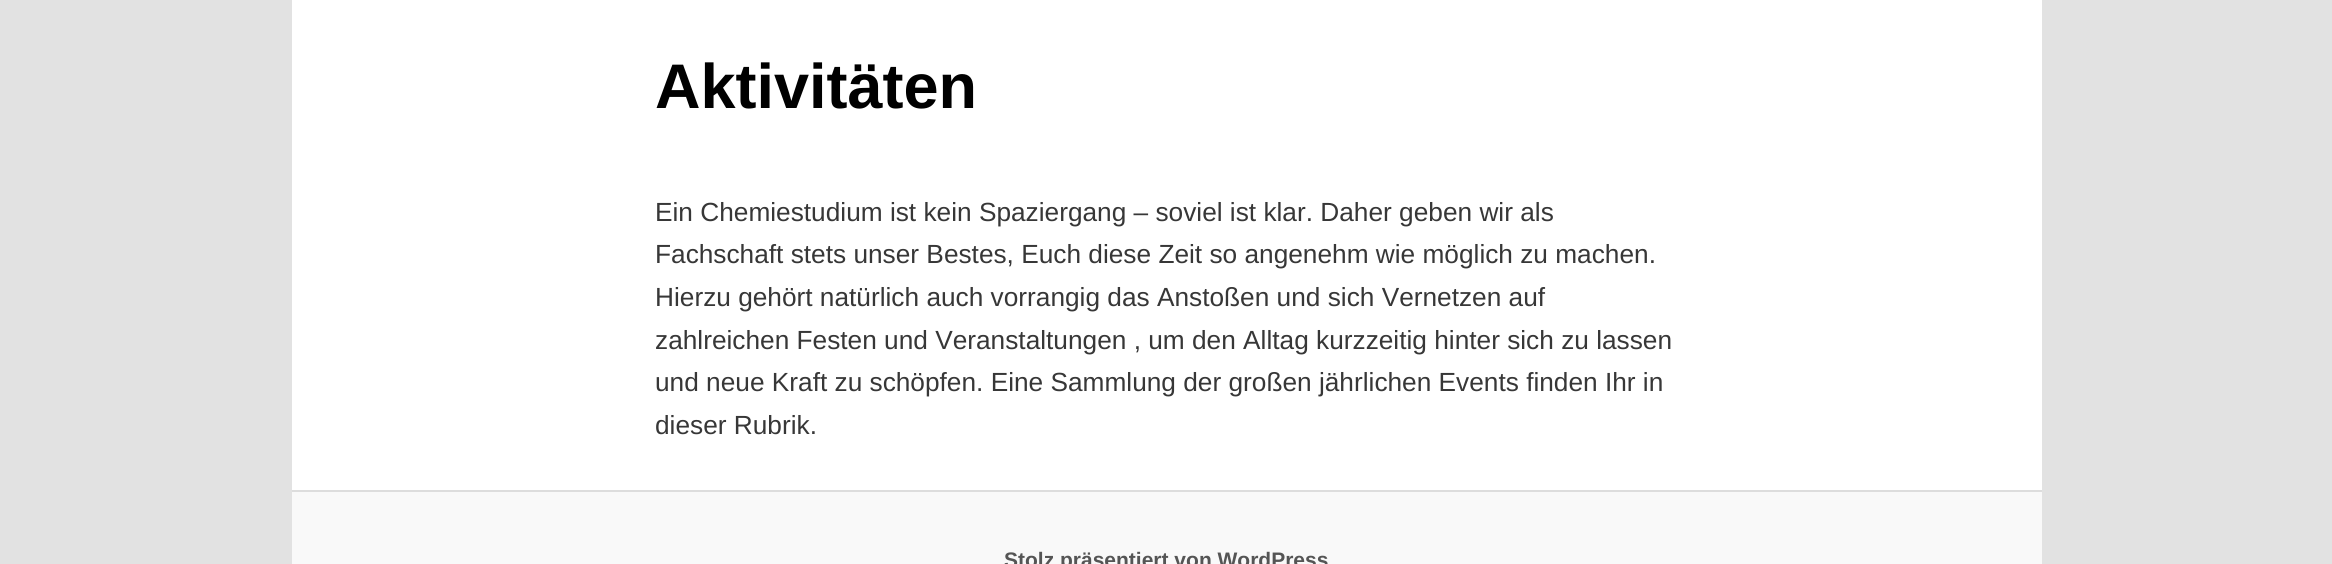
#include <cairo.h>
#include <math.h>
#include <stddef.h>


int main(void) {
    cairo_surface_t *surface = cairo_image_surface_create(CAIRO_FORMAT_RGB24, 2332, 564);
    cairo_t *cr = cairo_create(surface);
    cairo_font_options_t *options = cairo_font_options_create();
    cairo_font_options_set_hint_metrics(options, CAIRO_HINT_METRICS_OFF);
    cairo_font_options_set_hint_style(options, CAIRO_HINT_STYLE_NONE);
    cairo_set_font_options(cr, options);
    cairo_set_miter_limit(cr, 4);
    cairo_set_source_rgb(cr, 0.886, 0.886, 0.886);
    cairo_paint(cr);
    cairo_set_source_rgb(cr, 1, 1, 1);
    cairo_rectangle(cr, 292, 0, 1750, 490);
    cairo_fill(cr);
    cairo_select_font_face(cr, "Liberation Sans", CAIRO_FONT_SLANT_NORMAL, CAIRO_FONT_WEIGHT_BOLD);
    cairo_set_font_size(cr, 63);
    cairo_set_source_rgb(cr, 0, 0, 0);
    cairo_move_to(cr, 655, 108);
    cairo_show_text(cr, "Aktivitäten");
    cairo_select_font_face(cr, "Liberation Sans", CAIRO_FONT_SLANT_NORMAL, CAIRO_FONT_WEIGHT_NORMAL);
    cairo_set_font_size(cr, 26.25);
    cairo_set_source_rgb(cr, 0.216, 0.216, 0.216);
    cairo_move_to(cr, 655, 221);
    cairo_show_text(cr, "Ein Chemiestudium ist kein Spaziergang – soviel ist klar. Daher geben wir als");
    cairo_move_to(cr, 655, 263);
    cairo_show_text(cr, "Fachschaft stets unser Bestes, Euch diese Zeit so angenehm wie möglich zu machen.");
    cairo_move_to(cr, 655, 306);
    cairo_show_text(cr, "Hierzu gehört natürlich auch vorrangig das Anstoßen und sich Vernetzen auf");
    cairo_move_to(cr, 655, 349);
    cairo_show_text(cr, "zahlreichen Festen und Veranstaltungen , um den Alltag kurzzeitig hinter sich zu lassen");
    cairo_move_to(cr, 655, 391);
    cairo_show_text(cr, "und neue Kraft zu schöpfen. Eine Sammlung der großen jährlichen Events finden Ihr in");
    cairo_move_to(cr, 655, 434);
    cairo_show_text(cr, "dieser Rubrik.");
    cairo_set_source_rgb(cr, 0.976, 0.976, 0.976);
    cairo_rectangle(cr, 292, 492, 1750, 72);
    cairo_fill(cr);
    cairo_set_source_rgb(cr, 0.867, 0.867, 0.867);
    cairo_rectangle(cr, 292, 490, 1750, 2);
    cairo_fill(cr);
    cairo_select_font_face(cr, "Liberation Sans", CAIRO_FONT_SLANT_NORMAL, CAIRO_FONT_WEIGHT_BOLD);
    cairo_set_font_size(cr, 21);
    cairo_set_source_rgb(cr, 0.333, 0.333, 0.333);
    cairo_move_to(cr, 1004, 567);
    cairo_show_text(cr, "Stolz präsentiert von WordPress");
    cairo_surface_write_to_png(surface, "page.png");
    cairo_font_options_destroy(options);
    cairo_destroy(cr);
    cairo_surface_destroy(surface);
    return 0;
}
